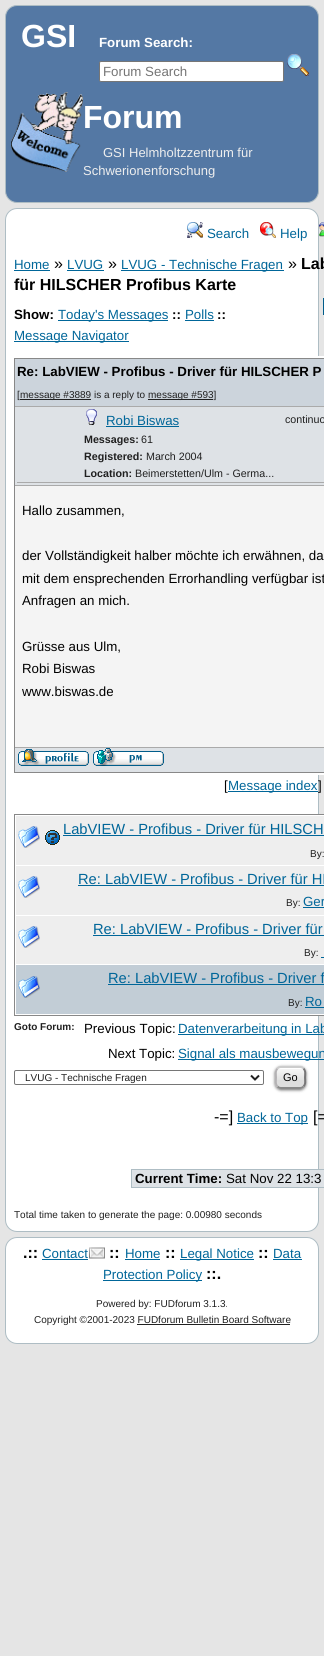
#include <cairo.h>
#include <math.h>
#include <stddef.h>


static void round_rect(cairo_t *cr, double x, double y, double w, double h, double r) {
    cairo_new_sub_path(cr);
    cairo_arc(cr, x + w - r, y + h - r, r, 0, M_PI / 2);
    cairo_arc(cr, x + r, y + h - r, r, M_PI / 2, M_PI);
    cairo_arc(cr, x + r, y + r, r, M_PI, 1.5 * M_PI);
    cairo_arc(cr, x + w - r, y + r, r, 1.5 * M_PI, 2 * M_PI);
    cairo_close_path(cr);
}

static void shadow(cairo_t *cr, double x, double y, double w, double h, double r, double blur, double alpha) {
    cairo_push_group_with_content(cr, CAIRO_CONTENT_ALPHA);
    cairo_set_operator(cr, CAIRO_OPERATOR_SOURCE);
    for (int i = 15; i >= -15 && fmin(w, h) + blur * i / 3 > 0; i -= 2) {
        double e = blur * i / 6;
        cairo_set_source_rgba(cr, 0, 0, 0, alpha * erfc((i - 1) / 8.5) / 2);
        round_rect(cr, x - e, y - e, w + 2 * e, h + 2 * e, fmax(0, fmin(r + e + blur * .6, fmin(w, h) / 2 + e)));
        cairo_fill(cr);
    }
    cairo_pattern_t *soft = cairo_pop_group(cr);
    cairo_mask(cr, soft);
    cairo_pattern_destroy(soft);
}

static void picture(cairo_t *cr, const char *path, double x, double y, double w, double h) {
    cairo_surface_t *image = cairo_image_surface_create_from_png(path);
    cairo_save(cr);
    cairo_set_source_surface(cr, image, x, y);
    cairo_rectangle(cr, x, y, w, h);
    cairo_fill(cr);
    cairo_restore(cr);
    cairo_surface_destroy(image);
}

int main(void) {
    cairo_surface_t *surface = cairo_image_surface_create(CAIRO_FORMAT_RGB24, 324, 1656);
    cairo_t *cr = cairo_create(surface);
    cairo_font_options_t *options = cairo_font_options_create();
    cairo_font_options_set_hint_metrics(options, CAIRO_HINT_METRICS_OFF);
    cairo_font_options_set_hint_style(options, CAIRO_HINT_STYLE_NONE);
    cairo_set_font_options(cr, options);
    cairo_set_miter_limit(cr, 4);
    cairo_set_source_rgb(cr, 0.898, 0.898, 0.898);
    cairo_paint(cr);
    cairo_set_source_rgb(cr, 0.329, 0.471, 0.643);
    round_rect(cr, 5.5, 5.5, 313, 197, 11.5);
    cairo_fill_preserve(cr);
    cairo_set_source_rgb(cr, 0.682, 0.741, 0.769);
    cairo_set_line_width(cr, 1);
    cairo_stroke(cr);
    cairo_select_font_face(cr, "Liberation Sans", CAIRO_FONT_SLANT_NORMAL, CAIRO_FONT_WEIGHT_BOLD);
    cairo_set_font_size(cr, 32);
    cairo_set_source_rgb(cr, 1, 1, 1);
    cairo_move_to(cr, 21, 47);
    cairo_show_text(cr, "GSI");
    picture(cr, "img1.png", 11, 92, 72, 80);
    cairo_move_to(cr, 83, 128);
    cairo_show_text(cr, "Forum");
    cairo_set_font_size(cr, 13.3);
    cairo_move_to(cr, 99, 47);
    cairo_show_text(cr, "Forum Search:");
    round_rect(cr, 99.5, 61.5, 184, 20, 1.5);
    cairo_fill_preserve(cr);
    cairo_set_source_rgb(cr, 0.463, 0.463, 0.463);
    cairo_stroke(cr);
    cairo_select_font_face(cr, "Liberation Sans", CAIRO_FONT_SLANT_NORMAL, CAIRO_FONT_WEIGHT_NORMAL);
    cairo_set_source_rgb(cr, 0.459, 0.459, 0.459);
    cairo_move_to(cr, 103, 76);
    cairo_show_text(cr, "Forum Search");
    picture(cr, "img2.png", 287, 54, 22, 22);
    cairo_set_font_size(cr, 13);
    cairo_set_source_rgb(cr, 0.933, 0.933, 0.933);
    cairo_move_to(cr, 103, 157);
    cairo_show_text(cr, "GSI Helmholtzzentrum für");
    cairo_move_to(cr, 83, 175);
    cairo_show_text(cr, "Schwerionenforschung");
    cairo_set_source_rgb(cr, 1, 1, 1);
    round_rect(cr, 5.5, 208.5, 313, 1023, 11.5);
    cairo_fill_preserve(cr);
    cairo_set_source_rgb(cr, 0.682, 0.741, 0.769);
    cairo_stroke(cr);
    picture(cr, "img3.png", 187, 222, 16, 16);
    cairo_set_font_size(cr, 13.3);
    cairo_set_source_rgb(cr, 0, 0.4, 0.6);
    cairo_move_to(cr, 207, 238);
    cairo_show_text(cr, "Search");
    picture(cr, "img4.png", 260, 222, 16, 16);
    cairo_move_to(cr, 280, 238);
    cairo_show_text(cr, "Help");
    picture(cr, "img5.png", 319, 222, 5, 15);
    cairo_move_to(cr, 14, 269);
    cairo_show_text(cr, "Home");
    cairo_rectangle(cr, 14, 270, 36, 1);
    cairo_fill(cr);
    cairo_set_font_size(cr, 16);
    cairo_set_source_rgb(cr, 0, 0, 0);
    cairo_move_to(cr, 54, 269);
    cairo_show_text(cr, "»");
    cairo_set_font_size(cr, 13.3);
    cairo_set_source_rgb(cr, 0, 0.4, 0.6);
    cairo_move_to(cr, 67, 269);
    cairo_show_text(cr, "LVUG");
    cairo_rectangle(cr, 67, 270, 37, 1);
    cairo_fill(cr);
    cairo_set_font_size(cr, 16);
    cairo_set_source_rgb(cr, 0, 0, 0);
    cairo_move_to(cr, 108, 269);
    cairo_show_text(cr, "»");
    cairo_set_source_rgb(cr, 0, 0.4, 0.6);
    cairo_rectangle(cr, 121, 270, 163, 1);
    cairo_fill(cr);
    cairo_set_font_size(cr, 13.3);
    cairo_move_to(cr, 121, 269);
    cairo_show_text(cr, "LVUG - Technische Fragen");
    cairo_set_font_size(cr, 16);
    cairo_set_source_rgb(cr, 0, 0, 0);
    cairo_move_to(cr, 288, 269);
    cairo_show_text(cr, "»");
    cairo_select_font_face(cr, "Liberation Sans", CAIRO_FONT_SLANT_NORMAL, CAIRO_FONT_WEIGHT_BOLD);
    cairo_move_to(cr, 301, 269);
    cairo_show_text(cr, "Lab");
    cairo_move_to(cr, 14, 290);
    cairo_show_text(cr, "für HILSCHER Profibus Karte");
    cairo_set_source_rgb(cr, 0.004, 0.361, 0.541);
    cairo_rectangle(cr, 323, 298, 1, 17);
    cairo_fill(cr);
    cairo_set_font_size(cr, 13.3);
    cairo_set_source_rgb(cr, 0, 0, 0);
    cairo_move_to(cr, 14, 319);
    cairo_show_text(cr, "Show:");
    cairo_set_source_rgb(cr, 0, 0.4, 0.6);
    cairo_rectangle(cr, 58, 320, 110, 1);
    cairo_fill(cr);
    cairo_select_font_face(cr, "Liberation Sans", CAIRO_FONT_SLANT_NORMAL, CAIRO_FONT_WEIGHT_NORMAL);
    cairo_move_to(cr, 58, 319);
    cairo_show_text(cr, "Today's Messages");
    cairo_select_font_face(cr, "Liberation Sans", CAIRO_FONT_SLANT_NORMAL, CAIRO_FONT_WEIGHT_BOLD);
    cairo_set_source_rgb(cr, 0, 0, 0);
    cairo_move_to(cr, 172, 319);
    cairo_show_text(cr, "::");
    cairo_select_font_face(cr, "Liberation Sans", CAIRO_FONT_SLANT_NORMAL, CAIRO_FONT_WEIGHT_NORMAL);
    cairo_set_source_rgb(cr, 0, 0.4, 0.6);
    cairo_move_to(cr, 185, 319);
    cairo_show_text(cr, "Polls");
    cairo_rectangle(cr, 185, 320, 29, 1);
    cairo_fill(cr);
    cairo_select_font_face(cr, "Liberation Sans", CAIRO_FONT_SLANT_NORMAL, CAIRO_FONT_WEIGHT_BOLD);
    cairo_set_source_rgb(cr, 0, 0, 0);
    cairo_move_to(cr, 217, 319);
    cairo_show_text(cr, "::");
    cairo_set_source_rgb(cr, 0, 0.4, 0.6);
    cairo_rectangle(cr, 14, 341, 115, 1);
    cairo_fill(cr);
    cairo_select_font_face(cr, "Liberation Sans", CAIRO_FONT_SLANT_NORMAL, CAIRO_FONT_WEIGHT_NORMAL);
    cairo_move_to(cr, 14, 340);
    cairo_show_text(cr, "Message Navigator");
    cairo_set_source_rgb(cr, 1, 1, 1);
    cairo_rectangle(cr, 318, 356, 6, 419);
    cairo_fill(cr);
    cairo_rectangle(cr, 14.5, 358.5, 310, 414);
    cairo_set_source_rgb(cr, 0.533, 0.533, 0.533);
    cairo_stroke(cr);
    cairo_set_source_rgb(cr, 0.8, 0.831, 0.863);
    cairo_rectangle(cr, 15, 359, 309, 47);
    cairo_fill(cr);
    cairo_set_source_rgb(cr, 0.667, 0.667, 0.667);
    cairo_rectangle(cr, 15, 406, 309, 1);
    cairo_fill(cr);
    cairo_select_font_face(cr, "Liberation Sans", CAIRO_FONT_SLANT_NORMAL, CAIRO_FONT_WEIGHT_BOLD);
    cairo_set_source_rgb(cr, 0, 0, 0);
    cairo_move_to(cr, 17, 376);
    cairo_show_text(cr, "Re: LabVIEW - Profibus - Driver für HILSCHER P");
    cairo_select_font_face(cr, "Liberation Sans", CAIRO_FONT_SLANT_NORMAL, CAIRO_FONT_WEIGHT_NORMAL);
    cairo_set_font_size(cr, 10);
    cairo_set_source_rgb(cr, 0.125, 0.125, 0.125);
    cairo_move_to(cr, 17, 398);
    cairo_show_text(cr, "[");
    cairo_rectangle(cr, 20, 399, 71, 1);
    cairo_fill(cr);
    cairo_move_to(cr, 20, 398);
    cairo_show_text(cr, "message #3889 is a reply to");
    cairo_rectangle(cr, 148, 399, 65, 1);
    cairo_fill(cr);
    cairo_move_to(cr, 148, 398);
    cairo_show_text(cr, "message #593]");
    cairo_set_source_rgb(cr, 0.871, 0.886, 0.902);
    cairo_rectangle(cr, 15, 407, 309, 78);
    cairo_fill(cr);
    cairo_set_source_rgb(cr, 0.667, 0.667, 0.667);
    cairo_rectangle(cr, 15, 485, 309, 1);
    cairo_fill(cr);
    cairo_rectangle(cr, 17, 482, 307, 1);
    cairo_fill(cr);
    picture(cr, "img6.png", 86, 409, 11, 16);
    cairo_set_font_size(cr, 13.3);
    cairo_set_source_rgb(cr, 0, 0.4, 0.6);
    cairo_move_to(cr, 106, 425);
    cairo_show_text(cr, "Robi Biswas");
    cairo_rectangle(cr, 106, 426, 73, 1);
    cairo_fill(cr);
    cairo_select_font_face(cr, "Liberation Sans", CAIRO_FONT_SLANT_NORMAL, CAIRO_FONT_WEIGHT_BOLD);
    cairo_set_font_size(cr, 10.7);
    cairo_set_source_rgb(cr, 0.125, 0.125, 0.125);
    cairo_move_to(cr, 84, 443);
    cairo_show_text(cr, "Messages:");
    cairo_select_font_face(cr, "Liberation Sans", CAIRO_FONT_SLANT_NORMAL, CAIRO_FONT_WEIGHT_NORMAL);
    cairo_move_to(cr, 141, 443);
    cairo_show_text(cr, "61");
    cairo_select_font_face(cr, "Liberation Sans", CAIRO_FONT_SLANT_NORMAL, CAIRO_FONT_WEIGHT_BOLD);
    cairo_move_to(cr, 84, 460);
    cairo_show_text(cr, "Registered:");
    cairo_select_font_face(cr, "Liberation Sans", CAIRO_FONT_SLANT_NORMAL, CAIRO_FONT_WEIGHT_NORMAL);
    cairo_move_to(cr, 146, 460);
    cairo_show_text(cr, "March 2004");
    cairo_select_font_face(cr, "Liberation Sans", CAIRO_FONT_SLANT_NORMAL, CAIRO_FONT_WEIGHT_BOLD);
    cairo_move_to(cr, 84, 477);
    cairo_show_text(cr, "Location:");
    cairo_select_font_face(cr, "Liberation Sans", CAIRO_FONT_SLANT_NORMAL, CAIRO_FONT_WEIGHT_NORMAL);
    cairo_move_to(cr, 135, 477);
    cairo_show_text(cr, "Beimerstetten/Ulm - Germa...");
    cairo_move_to(cr, 285, 423);
    cairo_show_text(cr, "continuo");
    cairo_set_source_rgb(cr, 0.957, 0.957, 0.957);
    cairo_rectangle(cr, 15, 486, 309, 261);
    cairo_fill(cr);
    cairo_set_source_rgb(cr, 0.667, 0.667, 0.667);
    cairo_rectangle(cr, 15, 747, 309, 1);
    cairo_fill(cr);
    cairo_set_font_size(cr, 13.3);
    cairo_set_source_rgb(cr, 0, 0, 0);
    cairo_move_to(cr, 22, 515);
    cairo_show_text(cr, "Hallo zusammen,");
    cairo_move_to(cr, 22, 560);
    cairo_show_text(cr, "der Vollständigkeit halber möchte ich erwähnen, da");
    cairo_move_to(cr, 22, 583);
    cairo_show_text(cr, "mit dem ensprechenden Errorhandling verfügbar ist");
    cairo_move_to(cr, 22, 605);
    cairo_show_text(cr, "Anfragen an mich.");
    cairo_move_to(cr, 22, 651);
    cairo_show_text(cr, "Grüsse aus Ulm,");
    cairo_move_to(cr, 22, 673);
    cairo_show_text(cr, "Robi Biswas");
    cairo_move_to(cr, 22, 696);
    cairo_show_text(cr, "www.biswas.de");
    cairo_set_source_rgb(cr, 0.871, 0.886, 0.902);
    cairo_rectangle(cr, 15, 748, 309, 24);
    cairo_fill(cr);
    picture(cr, "img7.png", 18, 749, 71, 17);
    picture(cr, "img8.png", 93, 748, 71, 18);
    cairo_set_source_rgb(cr, 0, 0, 0);
    cairo_move_to(cr, 224, 790);
    cairo_show_text(cr, "[");
    cairo_set_source_rgb(cr, 0, 0.4, 0.6);
    cairo_rectangle(cr, 228, 791, 90, 1);
    cairo_fill(cr);
    cairo_move_to(cr, 228, 790);
    cairo_show_text(cr, "Message index");
    cairo_set_source_rgb(cr, 0, 0, 0);
    cairo_move_to(cr, 318, 790);
    cairo_show_text(cr, "]");
    cairo_set_source_rgb(cr, 1, 1, 1);
    cairo_rectangle(cr, 318, 815, 6, 200);
    cairo_fill(cr);
    cairo_rectangle(cr, 14.5, 814.5, 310, 201);
    cairo_set_source_rgb(cr, 0.533, 0.533, 0.533);
    cairo_stroke(cr);
    cairo_set_source_rgb(cr, 0.933, 0.933, 0.933);
    cairo_rectangle(cr, 16, 816, 308, 49);
    cairo_fill(cr);
    picture(cr, "img9.png", 18, 826, 22, 22);
    picture(cr, "img10.png", 45, 830, 15, 15);
    cairo_set_font_size(cr, 14.7);
    cairo_set_source_rgb(cr, 0, 0.4, 0.6);
    cairo_move_to(cr, 63, 834);
    cairo_show_text(cr, "LabVIEW - Profibus - Driver für HILSCH");
    cairo_rectangle(cr, 63, 835, 261, 1);
    cairo_fill(cr);
    cairo_set_font_size(cr, 10);
    cairo_set_source_rgb(cr, 0.125, 0.125, 0.125);
    cairo_move_to(cr, 310, 857);
    cairo_show_text(cr, "By:");
    cairo_set_source_rgb(cr, 0.933, 0.933, 0.933);
    cairo_rectangle(cr, 16, 866, 308, 49);
    cairo_fill(cr);
    picture(cr, "img9.png", 18, 876, 22, 22);
    cairo_set_font_size(cr, 14.7);
    cairo_set_source_rgb(cr, 0, 0.4, 0.6);
    cairo_move_to(cr, 78, 884);
    cairo_show_text(cr, "Re: LabVIEW - Profibus - Driver für HI");
    cairo_rectangle(cr, 78, 885, 246, 1);
    cairo_fill(cr);
    cairo_set_font_size(cr, 10);
    cairo_set_source_rgb(cr, 0.125, 0.125, 0.125);
    cairo_move_to(cr, 286, 906);
    cairo_show_text(cr, "By:");
    cairo_set_font_size(cr, 13.3);
    cairo_set_source_rgb(cr, 0, 0.4, 0.6);
    cairo_move_to(cr, 303, 906);
    cairo_show_text(cr, "Ger");
    cairo_rectangle(cr, 303, 907, 21, 1);
    cairo_fill(cr);
    cairo_set_source_rgb(cr, 0.933, 0.933, 0.933);
    cairo_rectangle(cr, 16, 916, 308, 48);
    cairo_fill(cr);
    picture(cr, "img9.png", 18, 926, 22, 22);
    cairo_set_font_size(cr, 14.7);
    cairo_set_source_rgb(cr, 0, 0.4, 0.6);
    cairo_move_to(cr, 93, 934);
    cairo_show_text(cr, "Re: LabVIEW - Profibus - Driver für");
    cairo_rectangle(cr, 93, 935, 231, 1);
    cairo_fill(cr);
    cairo_set_font_size(cr, 10);
    cairo_set_source_rgb(cr, 0.125, 0.125, 0.125);
    cairo_move_to(cr, 304, 956);
    cairo_show_text(cr, "By:");
    cairo_set_source_rgb(cr, 0, 0.4, 0.6);
    cairo_rectangle(cr, 321, 957, 3, 1);
    cairo_fill(cr);
    cairo_set_source_rgb(cr, 0.761, 0.804, 0.839);
    cairo_rectangle(cr, 16, 965, 308, 49);
    cairo_fill(cr);
    picture(cr, "img11.png", 18, 976, 22, 22);
    cairo_set_font_size(cr, 14.7);
    cairo_set_source_rgb(cr, 0, 0.4, 0.6);
    cairo_move_to(cr, 108, 983);
    cairo_show_text(cr, "Re: LabVIEW - Profibus - Driver f");
    cairo_rectangle(cr, 108, 984, 216, 1);
    cairo_fill(cr);
    cairo_set_font_size(cr, 10);
    cairo_set_source_rgb(cr, 0.125, 0.125, 0.125);
    cairo_move_to(cr, 288, 1006);
    cairo_show_text(cr, "By:");
    cairo_set_font_size(cr, 13.3);
    cairo_set_source_rgb(cr, 0, 0.4, 0.6);
    cairo_move_to(cr, 305, 1006);
    cairo_show_text(cr, "Ro");
    cairo_rectangle(cr, 305, 1007, 19, 1);
    cairo_fill(cr);
    cairo_select_font_face(cr, "Liberation Sans", CAIRO_FONT_SLANT_NORMAL, CAIRO_FONT_WEIGHT_BOLD);
    cairo_set_font_size(cr, 10);
    cairo_set_source_rgb(cr, 0.125, 0.125, 0.125);
    cairo_move_to(cr, 14, 1030);
    cairo_show_text(cr, "Goto Forum:");
    cairo_select_font_face(cr, "Liberation Sans", CAIRO_FONT_SLANT_NORMAL, CAIRO_FONT_WEIGHT_NORMAL);
    cairo_set_font_size(cr, 13.3);
    cairo_set_source_rgb(cr, 0, 0, 0);
    cairo_move_to(cr, 84, 1033);
    cairo_show_text(cr, "Previous Topic:");
    cairo_set_source_rgb(cr, 0, 0.4, 0.6);
    cairo_rectangle(cr, 178, 1034, 146, 1);
    cairo_fill(cr);
    cairo_move_to(cr, 178, 1033);
    cairo_show_text(cr, "Datenverarbeitung in Lab");
    cairo_set_source_rgb(cr, 0, 0, 0);
    cairo_move_to(cr, 108, 1058);
    cairo_show_text(cr, "Next Topic:");
    cairo_set_source_rgb(cr, 0, 0.4, 0.6);
    cairo_rectangle(cr, 178, 1059, 146, 1);
    cairo_fill(cr);
    cairo_move_to(cr, 178, 1058);
    cairo_show_text(cr, "Signal als mausbewegun");
    round_rect(cr, 14.5, 1070.5, 249, 14, 1.5);
    cairo_set_source_rgb(cr, 0.463, 0.463, 0.463);
    cairo_stroke(cr);
    cairo_new_path(cr);
    cairo_move_to(cr, 251, 1075.5);
    cairo_line_to(cr, 255, 1079.5);
    cairo_line_to(cr, 259, 1075.5);
    cairo_set_source_rgb(cr, 0.125, 0.125, 0.125);
    cairo_set_line_width(cr, 2);
    cairo_stroke(cr);
    cairo_set_font_size(cr, 10);
    cairo_move_to(cr, 25, 1081);
    cairo_show_text(cr, "LVUG - Technische Fragen");
    cairo_set_source_rgb(cr, 0, 0, 0);
    shadow(cr, 275, 1067, 31, 23, 6, 1.5, 0.6);
    cairo_set_source_rgb(cr, 0.867, 0.867, 0.867);
    round_rect(cr, 275, 1066, 31, 23, 6);
    cairo_fill(cr);
    picture(cr, "img12.png", 275, 1068, 31, 12);
    cairo_new_path(cr);
    cairo_move_to(cr, 277.5, 1068.5);
    cairo_curve_to(cr, 278.5, 1067.5, 279.5, 1067, 281, 1067);
    cairo_line_to(cr, 300, 1067);
    cairo_curve_to(cr, 301.5, 1067, 302.5, 1067.5, 303.5, 1068.5);
    cairo_set_source_rgb(cr, 0.8, 0.8, 0.8);
    cairo_stroke(cr);
    cairo_new_path(cr);
    cairo_move_to(cr, 303.5, 1068.5);
    cairo_curve_to(cr, 306, 1071, 305, 1074.5, 305, 1077.5);
    cairo_curve_to(cr, 305, 1080.5, 306, 1084, 303.5, 1086.5);
    cairo_set_source_rgb(cr, 0.471, 0.467, 0.471);
    cairo_stroke(cr);
    cairo_new_path(cr);
    cairo_move_to(cr, 303.5, 1086.5);
    cairo_curve_to(cr, 302.5, 1087.5, 301.5, 1088, 300, 1088);
    cairo_line_to(cr, 281, 1088);
    cairo_curve_to(cr, 279.5, 1088, 278.5, 1087.5, 277.5, 1086.5);
    cairo_set_source_rgb(cr, 0.533, 0.533, 0.533);
    cairo_stroke(cr);
    cairo_new_path(cr);
    cairo_move_to(cr, 277.5, 1086.5);
    cairo_curve_to(cr, 275, 1084, 276, 1080.5, 276, 1077.5);
    cairo_curve_to(cr, 276, 1074.5, 275, 1071, 277.5, 1068.5);
    cairo_set_source_rgb(cr, 0.706, 0.698, 0.706);
    cairo_stroke(cr);
    cairo_set_font_size(cr, 11);
    cairo_set_source_rgb(cr, 0, 0, 0);
    cairo_move_to(cr, 283, 1081);
    cairo_show_text(cr, "Go");
    cairo_set_font_size(cr, 16);
    cairo_move_to(cr, 214, 1122);
    cairo_show_text(cr, "-=]");
    cairo_set_source_rgb(cr, 0, 0.4, 0.6);
    cairo_rectangle(cr, 237, 1123, 71, 1);
    cairo_fill(cr);
    cairo_set_font_size(cr, 13.3);
    cairo_move_to(cr, 237, 1122);
    cairo_show_text(cr, "Back to Top");
    cairo_set_font_size(cr, 16);
    cairo_set_source_rgb(cr, 0, 0, 0);
    cairo_move_to(cr, 313, 1122);
    cairo_show_text(cr, "[=");
    cairo_set_source_rgb(cr, 0.871, 0.886, 0.902);
    cairo_rectangle(cr, 132, 1170, 192, 17);
    cairo_fill(cr);
    cairo_select_font_face(cr, "Liberation Sans", CAIRO_FONT_SLANT_NORMAL, CAIRO_FONT_WEIGHT_BOLD);
    cairo_set_font_size(cr, 13.3);
    cairo_set_source_rgb(cr, 0, 0, 0);
    cairo_move_to(cr, 135, 1183);
    cairo_show_text(cr, "Current Time:");
    cairo_set_source_rgb(cr, 0.682, 0.741, 0.769);
    cairo_rectangle(cr, 131, 1169, 193, 1);
    cairo_fill(cr);
    cairo_rectangle(cr, 131, 1187, 193, 1);
    cairo_fill(cr);
    cairo_rectangle(cr, 131, 1169, 1, 19);
    cairo_fill(cr);
    cairo_select_font_face(cr, "Liberation Sans", CAIRO_FONT_SLANT_NORMAL, CAIRO_FONT_WEIGHT_NORMAL);
    cairo_set_source_rgb(cr, 0, 0, 0);
    cairo_move_to(cr, 226, 1183);
    cairo_show_text(cr, "Sat Nov 22 13:3");
    cairo_set_font_size(cr, 10);
    cairo_set_source_rgb(cr, 0.125, 0.125, 0.125);
    cairo_move_to(cr, 14, 1218);
    cairo_show_text(cr, "Total time taken to generate the page: 0.00980 seconds");
    cairo_set_source_rgb(cr, 1, 1, 1);
    round_rect(cr, 5.5, 1237.5, 313, 106, 11.5);
    cairo_fill_preserve(cr);
    cairo_set_source_rgb(cr, 0.682, 0.741, 0.769);
    cairo_set_line_width(cr, 1);
    cairo_stroke(cr);
    cairo_select_font_face(cr, "Liberation Sans", CAIRO_FONT_SLANT_NORMAL, CAIRO_FONT_WEIGHT_BOLD);
    cairo_set_font_size(cr, 16);
    cairo_set_source_rgb(cr, 0, 0, 0);
    cairo_move_to(cr, 23, 1258);
    cairo_show_text(cr, ".::");
    cairo_select_font_face(cr, "Liberation Sans", CAIRO_FONT_SLANT_NORMAL, CAIRO_FONT_WEIGHT_NORMAL);
    cairo_set_font_size(cr, 13.3);
    cairo_set_source_rgb(cr, 0, 0.4, 0.6);
    cairo_move_to(cr, 42, 1258);
    cairo_show_text(cr, "Contact");
    cairo_rectangle(cr, 42, 1259, 46, 1);
    cairo_fill(cr);
    picture(cr, "img13.png", 89, 1247, 16, 12);
    cairo_select_font_face(cr, "Liberation Sans", CAIRO_FONT_SLANT_NORMAL, CAIRO_FONT_WEIGHT_BOLD);
    cairo_set_font_size(cr, 16);
    cairo_set_source_rgb(cr, 0, 0, 0);
    cairo_move_to(cr, 109, 1258);
    cairo_show_text(cr, "::");
    cairo_select_font_face(cr, "Liberation Sans", CAIRO_FONT_SLANT_NORMAL, CAIRO_FONT_WEIGHT_NORMAL);
    cairo_set_font_size(cr, 13.3);
    cairo_set_source_rgb(cr, 0, 0.4, 0.6);
    cairo_move_to(cr, 125, 1258);
    cairo_show_text(cr, "Home");
    cairo_rectangle(cr, 125, 1259, 35, 1);
    cairo_fill(cr);
    cairo_select_font_face(cr, "Liberation Sans", CAIRO_FONT_SLANT_NORMAL, CAIRO_FONT_WEIGHT_BOLD);
    cairo_set_font_size(cr, 16);
    cairo_set_source_rgb(cr, 0, 0, 0);
    cairo_move_to(cr, 165, 1258);
    cairo_show_text(cr, "::");
    cairo_set_source_rgb(cr, 0, 0.4, 0.6);
    cairo_rectangle(cr, 180, 1259, 74, 1);
    cairo_fill(cr);
    cairo_select_font_face(cr, "Liberation Sans", CAIRO_FONT_SLANT_NORMAL, CAIRO_FONT_WEIGHT_NORMAL);
    cairo_set_font_size(cr, 13.3);
    cairo_move_to(cr, 180, 1258);
    cairo_show_text(cr, "Legal Notice");
    cairo_select_font_face(cr, "Liberation Sans", CAIRO_FONT_SLANT_NORMAL, CAIRO_FONT_WEIGHT_BOLD);
    cairo_set_font_size(cr, 16);
    cairo_set_source_rgb(cr, 0, 0, 0);
    cairo_move_to(cr, 258, 1258);
    cairo_show_text(cr, "::");
    cairo_select_font_face(cr, "Liberation Sans", CAIRO_FONT_SLANT_NORMAL, CAIRO_FONT_WEIGHT_NORMAL);
    cairo_set_font_size(cr, 13.3);
    cairo_set_source_rgb(cr, 0, 0.4, 0.6);
    cairo_move_to(cr, 273, 1258);
    cairo_show_text(cr, "Data");
    cairo_rectangle(cr, 273, 1259, 29, 1);
    cairo_fill(cr);
    cairo_rectangle(cr, 103, 1280, 99, 1);
    cairo_fill(cr);
    cairo_move_to(cr, 103, 1279);
    cairo_show_text(cr, "Protection Policy");
    cairo_select_font_face(cr, "Liberation Sans", CAIRO_FONT_SLANT_NORMAL, CAIRO_FONT_WEIGHT_BOLD);
    cairo_set_font_size(cr, 16);
    cairo_set_source_rgb(cr, 0, 0, 0);
    cairo_move_to(cr, 206, 1279);
    cairo_show_text(cr, "::.");
    cairo_select_font_face(cr, "Liberation Sans", CAIRO_FONT_SLANT_NORMAL, CAIRO_FONT_WEIGHT_NORMAL);
    cairo_set_font_size(cr, 10);
    cairo_set_source_rgb(cr, 0.125, 0.125, 0.125);
    cairo_move_to(cr, 96, 1307);
    cairo_show_text(cr, "Powered by: FUDforum 3.1.3.");
    cairo_move_to(cr, 34, 1323);
    cairo_show_text(cr, "Copyright ©2001-2023 FUDforum Bulletin Board Software");
    cairo_rectangle(cr, 137, 1324, 153, 1);
    cairo_fill(cr);
    cairo_surface_write_to_png(surface, "page.png");
    cairo_font_options_destroy(options);
    cairo_destroy(cr);
    cairo_surface_destroy(surface);
    return 0;
}
